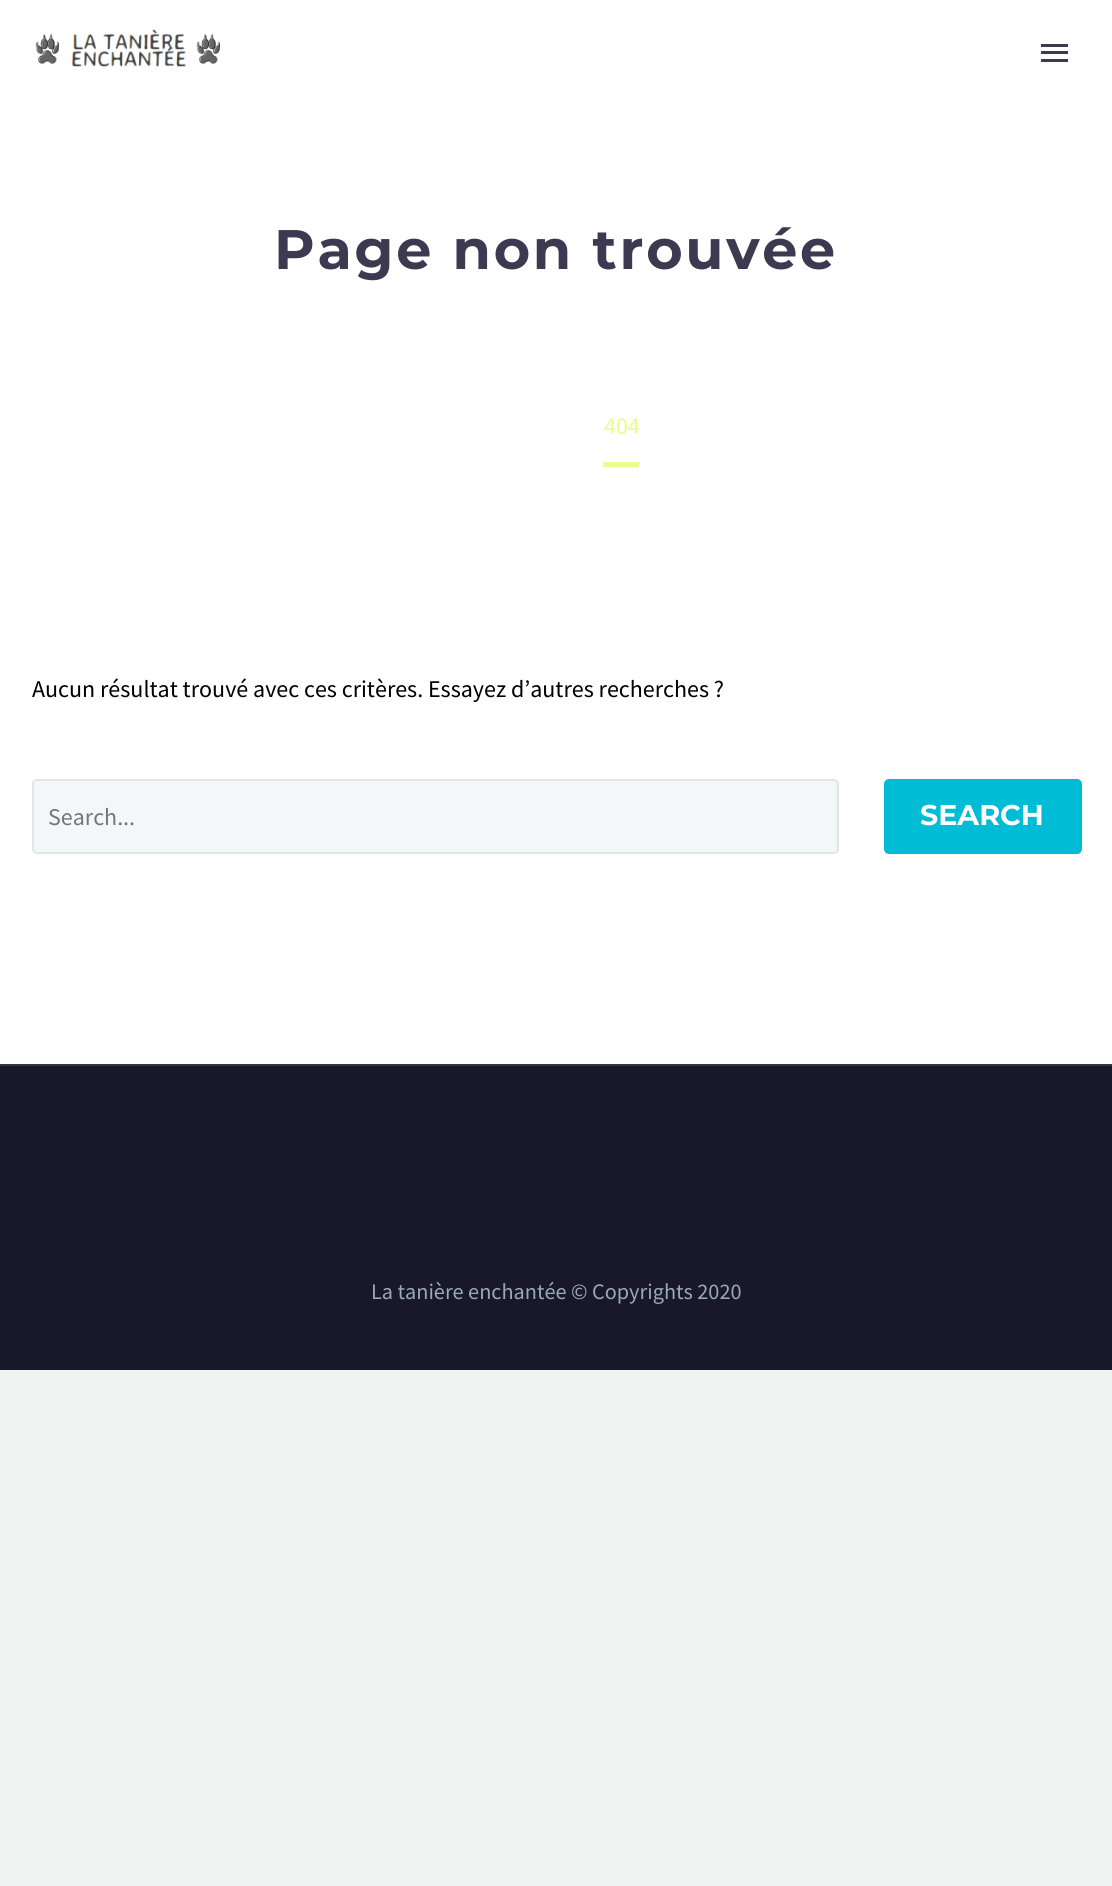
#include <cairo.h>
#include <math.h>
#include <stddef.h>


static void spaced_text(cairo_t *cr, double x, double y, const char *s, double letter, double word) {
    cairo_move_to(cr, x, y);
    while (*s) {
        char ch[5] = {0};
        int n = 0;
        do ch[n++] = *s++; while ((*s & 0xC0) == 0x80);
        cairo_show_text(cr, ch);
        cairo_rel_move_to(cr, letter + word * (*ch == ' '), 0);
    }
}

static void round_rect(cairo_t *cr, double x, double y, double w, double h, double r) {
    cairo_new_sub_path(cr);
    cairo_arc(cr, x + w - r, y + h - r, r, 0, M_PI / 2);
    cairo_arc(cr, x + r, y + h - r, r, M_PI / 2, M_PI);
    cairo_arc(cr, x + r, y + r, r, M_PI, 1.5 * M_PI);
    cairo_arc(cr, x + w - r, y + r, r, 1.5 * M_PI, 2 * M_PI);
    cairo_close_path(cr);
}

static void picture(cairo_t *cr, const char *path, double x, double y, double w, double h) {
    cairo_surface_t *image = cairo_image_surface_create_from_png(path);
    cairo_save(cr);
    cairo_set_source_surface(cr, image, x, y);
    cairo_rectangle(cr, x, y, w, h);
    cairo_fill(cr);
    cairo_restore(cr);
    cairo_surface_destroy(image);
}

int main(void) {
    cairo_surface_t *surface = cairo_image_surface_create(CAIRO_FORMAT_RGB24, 1112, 1886);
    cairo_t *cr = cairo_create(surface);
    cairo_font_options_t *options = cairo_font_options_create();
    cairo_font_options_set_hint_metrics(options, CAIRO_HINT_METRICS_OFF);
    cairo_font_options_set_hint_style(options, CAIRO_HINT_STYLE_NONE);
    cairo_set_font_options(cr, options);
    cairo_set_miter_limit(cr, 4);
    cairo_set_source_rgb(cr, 0.941, 0.953, 0.949);
    cairo_paint(cr);
    cairo_set_source_rgb(cr, 1, 1, 1);
    cairo_rectangle(cr, 0, 0, 1112, 101);
    cairo_fill(cr);
    picture(cr, "img1.png", 35, 29, 186, 38);
    cairo_set_source_rgb(cr, 0.235, 0.224, 0.314);
    cairo_rectangle(cr, 1041, 44, 27, 3);
    cairo_fill(cr);
    cairo_rectangle(cr, 1041, 51, 27, 3);
    cairo_fill(cr);
    cairo_rectangle(cr, 1041, 59, 27, 3);
    cairo_fill(cr);
    cairo_set_source_rgb(cr, 1, 1, 1);
    cairo_rectangle(cr, 0, 101, 1112, 963);
    cairo_fill(cr);
    cairo_select_font_face(cr, "Montserrat", CAIRO_FONT_SLANT_NORMAL, CAIRO_FONT_WEIGHT_BOLD);
    cairo_set_font_size(cr, 55.6);
    cairo_set_source_rgb(cr, 0.235, 0.224, 0.314);
    spaced_text(cr, 274, 269, "Page non trouvée", 2.75, 0);
    cairo_set_source_rgb(cr, 0.906, 1, 0.537);
    cairo_rectangle(cr, 603, 462, 36, 5);
    cairo_fill(cr);
    cairo_select_font_face(cr, "Source Sans Pro", CAIRO_FONT_SLANT_NORMAL, CAIRO_FONT_WEIGHT_NORMAL);
    cairo_set_font_size(cr, 24);
    cairo_move_to(cr, 604, 434);
    cairo_show_text(cr, "404");
    cairo_set_source_rgb(cr, 0, 0, 0);
    cairo_move_to(cr, 32, 697);
    cairo_show_text(cr, "Aucun résultat trouvé avec ces critères. Essayez d’autres recherches ?");
    cairo_set_source_rgb(cr, 0.957, 0.965, 0.969);
    round_rect(cr, 33, 780, 805, 73, 4);
    cairo_fill_preserve(cr);
    cairo_set_source_rgb(cr, 0.875, 0.898, 0.91);
    cairo_stroke(cr);
    cairo_set_source_rgb(cr, 0.459, 0.459, 0.459);
    cairo_move_to(cr, 48, 825);
    cairo_show_text(cr, "Search...");
    cairo_set_source_rgb(cr, 0, 0.737, 0.831);
    round_rect(cr, 884, 779, 198, 75, 5);
    cairo_fill(cr);
    cairo_select_font_face(cr, "Montserrat", CAIRO_FONT_SLANT_NORMAL, CAIRO_FONT_WEIGHT_BOLD);
    cairo_set_font_size(cr, 28.5);
    cairo_set_source_rgb(cr, 1, 1, 1);
    cairo_move_to(cr, 920, 825);
    cairo_show_text(cr, "SEARCH");
    cairo_set_source_rgb(cr, 0.094, 0.094, 0.157);
    cairo_rectangle(cr, 0, 1066, 1112, 304);
    cairo_fill(cr);
    cairo_set_source_rgb(cr, 0.192, 0.212, 0.275);
    cairo_rectangle(cr, 0, 1064, 1112, 2);
    cairo_fill(cr);
    cairo_select_font_face(cr, "Source Sans Pro", CAIRO_FONT_SLANT_NORMAL, CAIRO_FONT_WEIGHT_NORMAL);
    cairo_set_font_size(cr, 22.25);
    cairo_set_source_rgb(cr, 0.6, 0.663, 0.71);
    cairo_move_to(cr, 371, 1299);
    cairo_show_text(cr, "La tanière enchantée © Copyrights 2020");
    cairo_surface_write_to_png(surface, "page.png");
    cairo_font_options_destroy(options);
    cairo_destroy(cr);
    cairo_surface_destroy(surface);
    return 0;
}
